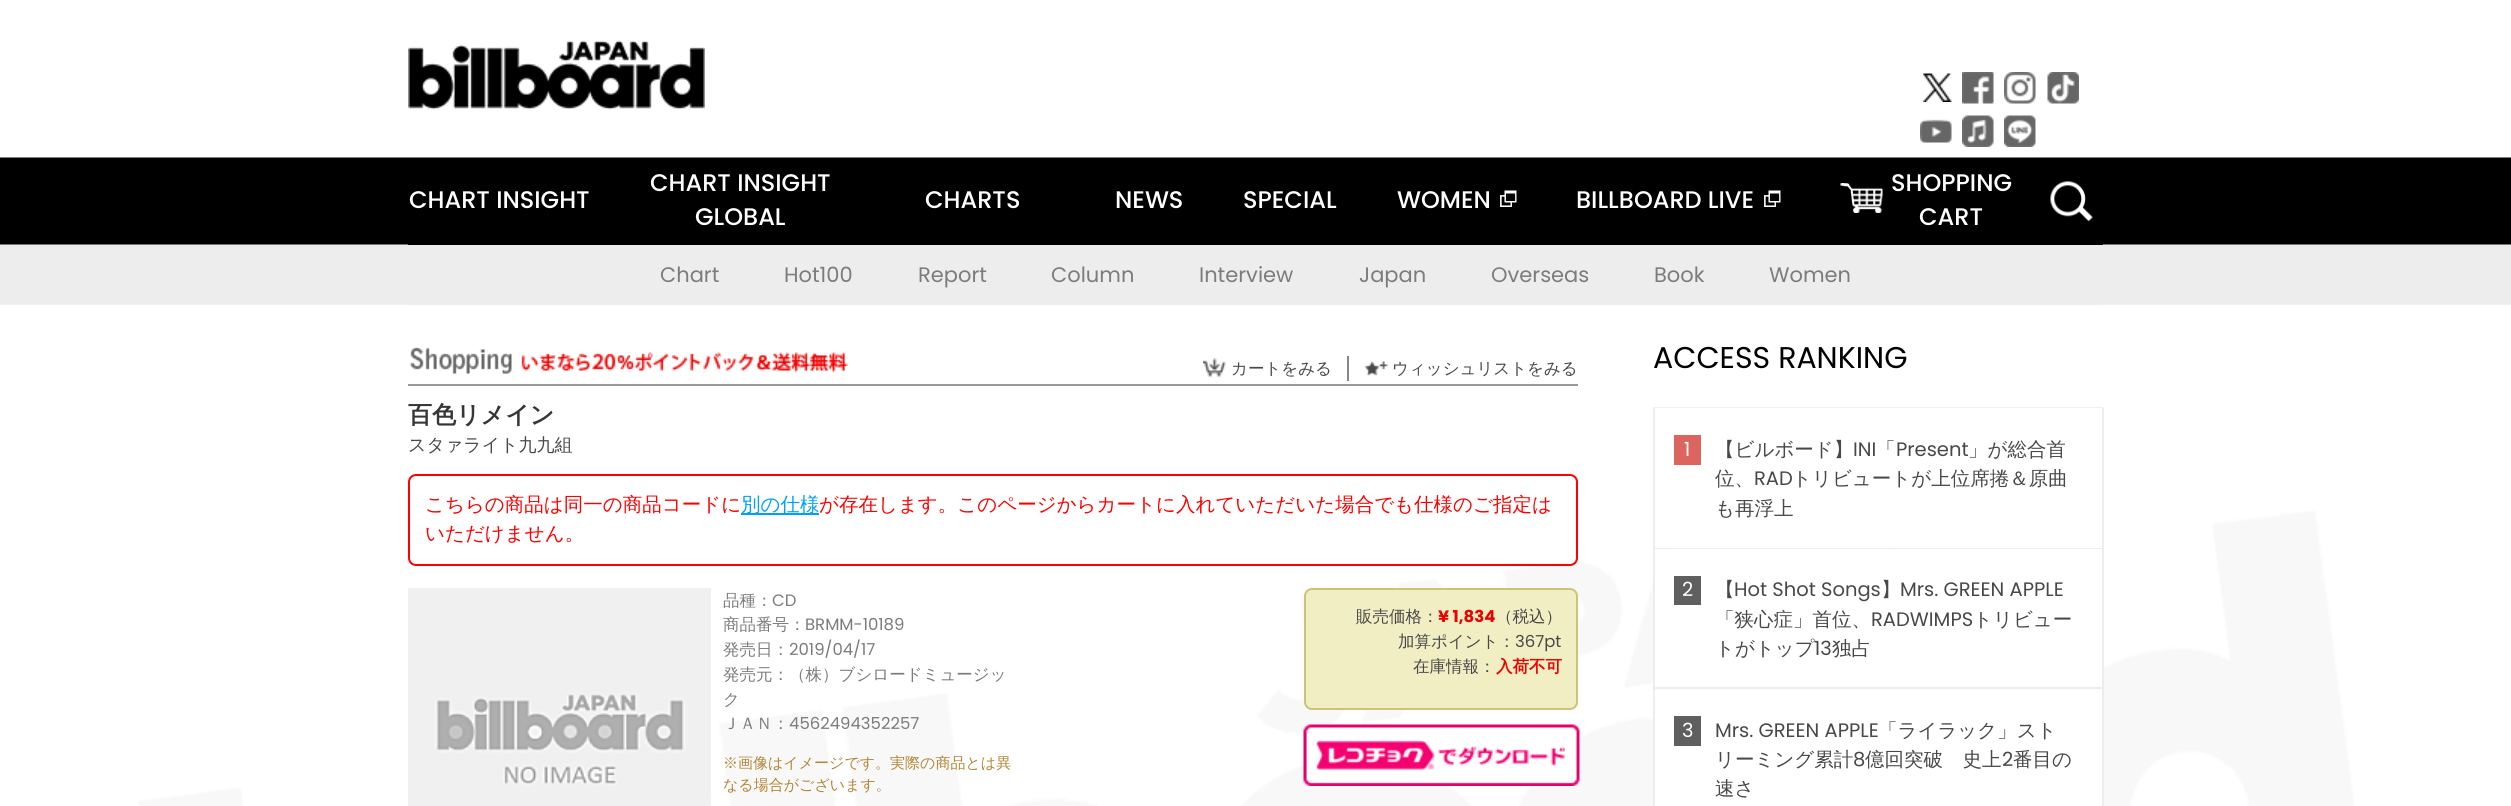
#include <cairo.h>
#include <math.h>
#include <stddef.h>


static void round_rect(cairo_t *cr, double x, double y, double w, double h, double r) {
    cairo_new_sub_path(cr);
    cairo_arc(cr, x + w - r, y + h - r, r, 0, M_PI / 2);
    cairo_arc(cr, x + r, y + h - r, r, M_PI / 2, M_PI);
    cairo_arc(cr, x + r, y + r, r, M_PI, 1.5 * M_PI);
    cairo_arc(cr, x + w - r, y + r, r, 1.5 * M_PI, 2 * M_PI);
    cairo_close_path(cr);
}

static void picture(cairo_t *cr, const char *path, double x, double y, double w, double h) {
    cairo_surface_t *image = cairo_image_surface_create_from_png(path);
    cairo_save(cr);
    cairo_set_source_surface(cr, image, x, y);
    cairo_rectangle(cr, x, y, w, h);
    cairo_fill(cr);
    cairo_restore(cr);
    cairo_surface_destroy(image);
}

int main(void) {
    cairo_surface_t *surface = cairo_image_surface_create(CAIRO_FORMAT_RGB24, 2511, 806);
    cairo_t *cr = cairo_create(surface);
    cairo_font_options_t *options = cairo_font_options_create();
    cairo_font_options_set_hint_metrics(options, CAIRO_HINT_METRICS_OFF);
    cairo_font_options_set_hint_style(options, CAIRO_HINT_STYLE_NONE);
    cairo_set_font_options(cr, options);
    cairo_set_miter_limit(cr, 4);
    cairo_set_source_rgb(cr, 1, 1, 1);
    cairo_paint(cr);
    picture(cr, "img1.png", 138, 511, 2216, 295);
    picture(cr, "img2.png", 0, 157, 2511, 147);
    cairo_set_source_rgb(cr, 0.945, 0.945, 0.945);
    cairo_rectangle(cr, 0, 304, 2511, 1);
    cairo_fill(cr);
    picture(cr, "img3.png", 408, 40, 297, 70);
    picture(cr, "img4.png", 1923, 73, 29, 29);
    picture(cr, "img5.png", 1962, 72, 32, 32);
    picture(cr, "img6.png", 2004, 72, 32, 32);
    picture(cr, "img7.png", 2047, 72, 32, 32);
    picture(cr, "img8.png", 1920, 119, 32, 24);
    picture(cr, "img9.png", 1962, 115, 32, 32);
    picture(cr, "img10.png", 2004, 115, 32, 32);
    cairo_set_source_rgb(cr, 0, 0, 0);
    cairo_rectangle(cr, 408, 244, 1695, 1);
    cairo_fill(cr);
    cairo_select_font_face(cr, "Poppins Medium", CAIRO_FONT_SLANT_NORMAL, CAIRO_FONT_WEIGHT_NORMAL);
    cairo_set_font_size(cr, 24);
    cairo_set_source_rgb(cr, 1, 1, 1);
    cairo_move_to(cr, 409, 208);
    cairo_show_text(cr, "CHART INSIGHT");
    cairo_move_to(cr, 650, 191);
    cairo_show_text(cr, "CHART INSIGHT");
    cairo_move_to(cr, 695, 225);
    cairo_show_text(cr, "GLOBAL");
    cairo_move_to(cr, 925, 208);
    cairo_show_text(cr, "CHARTS");
    cairo_move_to(cr, 1115, 208);
    cairo_show_text(cr, "NEWS");
    cairo_move_to(cr, 1243, 208);
    cairo_show_text(cr, "SPECIAL");
    cairo_move_to(cr, 1397, 208);
    cairo_show_text(cr, "WOMEN");
    picture(cr, "img11.png", 1500, 190, 17, 17);
    cairo_move_to(cr, 1576, 208);
    cairo_show_text(cr, "BILLBOARD LIVE");
    picture(cr, "img11.png", 1764, 190, 17, 17);
    picture(cr, "img12.png", 1840, 183, 43, 30);
    cairo_move_to(cr, 1891, 191);
    cairo_show_text(cr, "SHOPPING");
    cairo_move_to(cr, 1919, 225);
    cairo_show_text(cr, "CART");
    picture(cr, "img13.png", 2050, 181, 43, 41);
    cairo_set_source_rgb(cr, 0.929, 0.929, 0.929);
    cairo_rectangle(cr, 408, 304, 1695, 1);
    cairo_fill(cr);
    cairo_select_font_face(cr, "Poppins", CAIRO_FONT_SLANT_NORMAL, CAIRO_FONT_WEIGHT_NORMAL);
    cairo_set_font_size(cr, 21);
    cairo_set_source_rgb(cr, 0.486, 0.486, 0.486);
    cairo_move_to(cr, 660, 282);
    cairo_show_text(cr, "Chart");
    cairo_move_to(cr, 784, 282);
    cairo_show_text(cr, "Hot100");
    cairo_move_to(cr, 918, 282);
    cairo_show_text(cr, "Report");
    cairo_move_to(cr, 1051, 282);
    cairo_show_text(cr, "Column");
    cairo_move_to(cr, 1199, 282);
    cairo_show_text(cr, "Interview");
    cairo_move_to(cr, 1359, 282);
    cairo_show_text(cr, "Japan");
    cairo_move_to(cr, 1491, 282);
    cairo_show_text(cr, "Overseas");
    cairo_move_to(cr, 1654, 282);
    cairo_show_text(cr, "Book");
    cairo_move_to(cr, 1769, 282);
    cairo_show_text(cr, "Women");
    cairo_set_source_rgb(cr, 0.6, 0.6, 0.6);
    cairo_rectangle(cr, 408, 384, 1170, 2);
    cairo_fill(cr);
    picture(cr, "img14.png", 409, 347, 439, 27);
    cairo_set_source_rgb(cr, 0.533, 0.533, 0.533);
    cairo_rectangle(cr, 1347, 356, 2, 25);
    cairo_fill(cr);
    picture(cr, "img15.png", 1203, 358, 23, 19);
    cairo_select_font_face(cr, "WenQuanYi Zen Hei Medium", CAIRO_FONT_SLANT_NORMAL, CAIRO_FONT_WEIGHT_NORMAL);
    cairo_set_font_size(cr, 16.5);
    cairo_set_source_rgb(cr, 0.282, 0.282, 0.282);
    cairo_move_to(cr, 1231, 374);
    cairo_show_text(cr, "カートをみる");
    picture(cr, "img16.png", 1364, 361, 24, 15);
    cairo_move_to(cr, 1392, 374);
    cairo_show_text(cr, "ウィッシュリストをみる");
    cairo_select_font_face(cr, "WenQuanYi Zen Hei", CAIRO_FONT_SLANT_NORMAL, CAIRO_FONT_WEIGHT_BOLD);
    cairo_set_font_size(cr, 24);
    cairo_set_source_rgb(cr, 0.212, 0.212, 0.212);
    cairo_move_to(cr, 408, 423);
    cairo_show_text(cr, "百色リメイン");
    cairo_select_font_face(cr, "WenQuanYi Zen Hei Medium", CAIRO_FONT_SLANT_NORMAL, CAIRO_FONT_WEIGHT_NORMAL);
    cairo_set_font_size(cr, 18);
    cairo_set_source_rgb(cr, 0.282, 0.282, 0.282);
    cairo_move_to(cr, 408, 451);
    cairo_show_text(cr, "スタァライト九九組");
    round_rect(cr, 409, 475, 1168, 90, 7);
    cairo_set_source_rgb(cr, 1, 0, 0);
    cairo_stroke(cr);
    cairo_set_font_size(cr, 19.5);
    cairo_move_to(cr, 425, 511);
    cairo_show_text(cr, "こちらの商品は同一の商品コードに");
    cairo_set_source_rgb(cr, 0, 0.624, 1);
    cairo_rectangle(cr, 741, 513, 78, 2);
    cairo_fill(cr);
    cairo_move_to(cr, 741, 511);
    cairo_show_text(cr, "別の仕様");
    cairo_set_source_rgb(cr, 1, 0, 0);
    cairo_move_to(cr, 819, 511);
    cairo_show_text(cr, "が存在します。このページからカートに入れていただいた場合でも仕様のご指定は");
    cairo_move_to(cr, 425, 540);
    cairo_show_text(cr, "いただけません。");
    picture(cr, "img17.png", 408, 588, 303, 218);
    cairo_set_font_size(cr, 16.5);
    cairo_set_source_rgb(cr, 0.486, 0.486, 0.486);
    cairo_move_to(cr, 723, 606);
    cairo_show_text(cr, "品種：");
    cairo_select_font_face(cr, "Poppins", CAIRO_FONT_SLANT_NORMAL, CAIRO_FONT_WEIGHT_NORMAL);
    cairo_move_to(cr, 772, 606);
    cairo_show_text(cr, "CD");
    cairo_select_font_face(cr, "WenQuanYi Zen Hei Medium", CAIRO_FONT_SLANT_NORMAL, CAIRO_FONT_WEIGHT_NORMAL);
    cairo_move_to(cr, 723, 630);
    cairo_show_text(cr, "商品番号：");
    cairo_select_font_face(cr, "Poppins", CAIRO_FONT_SLANT_NORMAL, CAIRO_FONT_WEIGHT_NORMAL);
    cairo_move_to(cr, 805, 630);
    cairo_show_text(cr, "BRMM-10189");
    cairo_select_font_face(cr, "WenQuanYi Zen Hei Medium", CAIRO_FONT_SLANT_NORMAL, CAIRO_FONT_WEIGHT_NORMAL);
    cairo_move_to(cr, 723, 655);
    cairo_show_text(cr, "発売日：");
    cairo_select_font_face(cr, "Poppins", CAIRO_FONT_SLANT_NORMAL, CAIRO_FONT_WEIGHT_NORMAL);
    cairo_move_to(cr, 789, 655);
    cairo_show_text(cr, "2019/04/17");
    cairo_select_font_face(cr, "WenQuanYi Zen Hei Medium", CAIRO_FONT_SLANT_NORMAL, CAIRO_FONT_WEIGHT_NORMAL);
    cairo_move_to(cr, 723, 680);
    cairo_show_text(cr, "発売元：（株）ブシロードミュージッ");
    cairo_move_to(cr, 723, 705);
    cairo_show_text(cr, "ク");
    cairo_move_to(cr, 723, 729);
    cairo_show_text(cr, "ＪＡＮ：");
    cairo_select_font_face(cr, "Poppins", CAIRO_FONT_SLANT_NORMAL, CAIRO_FONT_WEIGHT_NORMAL);
    cairo_move_to(cr, 789, 729);
    cairo_show_text(cr, "4562494352257");
    cairo_select_font_face(cr, "WenQuanYi Zen Hei Medium", CAIRO_FONT_SLANT_NORMAL, CAIRO_FONT_WEIGHT_NORMAL);
    cairo_set_font_size(cr, 15);
    cairo_set_source_rgb(cr, 0.702, 0.522, 0.204);
    cairo_move_to(cr, 723, 768);
    cairo_show_text(cr, "※画像はイメージです。実際の商品とは異");
    cairo_move_to(cr, 723, 790);
    cairo_show_text(cr, "なる場合がございます。");
    cairo_set_source_rgb(cr, 0.949, 0.933, 0.769);
    round_rect(cr, 1305, 589, 272, 120, 7);
    cairo_fill_preserve(cr);
    cairo_set_source_rgb(cr, 0.796, 0.769, 0.467);
    cairo_stroke(cr);
    cairo_set_font_size(cr, 16.5);
    cairo_set_source_rgb(cr, 0.282, 0.282, 0.282);
    cairo_move_to(cr, 1356, 622);
    cairo_show_text(cr, "販売価格：");
    cairo_select_font_face(cr, "Poppins", CAIRO_FONT_SLANT_NORMAL, CAIRO_FONT_WEIGHT_BOLD);
    cairo_set_source_rgb(cr, 0.922, 0, 0);
    cairo_move_to(cr, 1438, 622);
    cairo_show_text(cr, "¥ 1,834");
    cairo_select_font_face(cr, "WenQuanYi Zen Hei Medium", CAIRO_FONT_SLANT_NORMAL, CAIRO_FONT_WEIGHT_NORMAL);
    cairo_set_source_rgb(cr, 0.282, 0.282, 0.282);
    cairo_move_to(cr, 1496, 622);
    cairo_show_text(cr, "（税込）");
    cairo_move_to(cr, 1398, 647);
    cairo_show_text(cr, "加算ポイント：");
    cairo_select_font_face(cr, "Poppins", CAIRO_FONT_SLANT_NORMAL, CAIRO_FONT_WEIGHT_NORMAL);
    cairo_move_to(cr, 1515, 647);
    cairo_show_text(cr, "367pt");
    cairo_select_font_face(cr, "WenQuanYi Zen Hei Medium", CAIRO_FONT_SLANT_NORMAL, CAIRO_FONT_WEIGHT_NORMAL);
    cairo_move_to(cr, 1413, 672);
    cairo_show_text(cr, "在庫情報：");
    cairo_select_font_face(cr, "WenQuanYi Zen Hei", CAIRO_FONT_SLANT_NORMAL, CAIRO_FONT_WEIGHT_BOLD);
    cairo_set_source_rgb(cr, 0.922, 0, 0);
    cairo_move_to(cr, 1496, 672);
    cairo_show_text(cr, "入荷不可");
    picture(cr, "img18.png", 1303, 724, 277, 62);
    cairo_select_font_face(cr, "Poppins", CAIRO_FONT_SLANT_NORMAL, CAIRO_FONT_WEIGHT_NORMAL);
    cairo_set_font_size(cr, 30);
    cairo_set_source_rgb(cr, 0, 0, 0);
    cairo_move_to(cr, 1653, 368);
    cairo_show_text(cr, "ACCESS RANKING");
    cairo_set_source_rgb(cr, 0.941, 0.941, 0.941);
    cairo_rectangle(cr, 1653, 407, 450, 1);
    cairo_fill(cr);
    cairo_set_source_rgb(cr, 0.929, 0.929, 0.929);
    cairo_rectangle(cr, 2102, 408, 2, 398);
    cairo_fill(cr);
    cairo_rectangle(cr, 1653, 548, 450, 1);
    cairo_fill(cr);
    cairo_rectangle(cr, 1653, 408, 2, 141);
    cairo_fill(cr);
    cairo_set_source_rgb(cr, 1, 1, 1);
    cairo_rectangle(cr, 1665, 518, 229, 30);
    cairo_fill(cr);
    cairo_set_source_rgb(cr, 0.863, 0.396, 0.376);
    cairo_rectangle(cr, 1674, 435, 27, 30);
    cairo_fill(cr);
    cairo_set_font_size(cr, 19.5);
    cairo_set_source_rgb(cr, 1, 1, 1);
    cairo_move_to(cr, 1684, 456);
    cairo_show_text(cr, "1");
    cairo_select_font_face(cr, "WenQuanYi Zen Hei Medium", CAIRO_FONT_SLANT_NORMAL, CAIRO_FONT_WEIGHT_NORMAL);
    cairo_set_source_rgb(cr, 0.282, 0.282, 0.282);
    cairo_move_to(cr, 1715, 456);
    cairo_show_text(cr, "【ビルボード】");
    cairo_select_font_face(cr, "Poppins", CAIRO_FONT_SLANT_NORMAL, CAIRO_FONT_WEIGHT_NORMAL);
    cairo_move_to(cr, 1853, 456);
    cairo_show_text(cr, "INI");
    cairo_select_font_face(cr, "WenQuanYi Zen Hei Medium", CAIRO_FONT_SLANT_NORMAL, CAIRO_FONT_WEIGHT_NORMAL);
    cairo_move_to(cr, 1876, 456);
    cairo_show_text(cr, "「");
    cairo_select_font_face(cr, "Poppins", CAIRO_FONT_SLANT_NORMAL, CAIRO_FONT_WEIGHT_NORMAL);
    cairo_move_to(cr, 1896, 456);
    cairo_show_text(cr, "Present");
    cairo_select_font_face(cr, "WenQuanYi Zen Hei Medium", CAIRO_FONT_SLANT_NORMAL, CAIRO_FONT_WEIGHT_NORMAL);
    cairo_move_to(cr, 1968, 456);
    cairo_show_text(cr, "」が総合首");
    cairo_move_to(cr, 1715, 485);
    cairo_show_text(cr, "位、");
    cairo_select_font_face(cr, "Poppins", CAIRO_FONT_SLANT_NORMAL, CAIRO_FONT_WEIGHT_NORMAL);
    cairo_move_to(cr, 1754, 485);
    cairo_show_text(cr, "RAD");
    cairo_select_font_face(cr, "WenQuanYi Zen Hei Medium", CAIRO_FONT_SLANT_NORMAL, CAIRO_FONT_WEIGHT_NORMAL);
    cairo_move_to(cr, 1792, 485);
    cairo_show_text(cr, "トリビュートが上位席捲＆原曲");
    cairo_move_to(cr, 1715, 515);
    cairo_show_text(cr, "も再浮上");
    cairo_set_source_rgb(cr, 0.929, 0.929, 0.929);
    cairo_rectangle(cr, 1653, 687, 450, 2);
    cairo_fill(cr);
    cairo_rectangle(cr, 1653, 549, 2, 257);
    cairo_fill(cr);
    cairo_set_source_rgb(cr, 1, 1, 1);
    cairo_rectangle(cr, 1655, 549, 447, 138);
    cairo_fill(cr);
    cairo_set_source_rgb(cr, 0.373, 0.373, 0.373);
    cairo_rectangle(cr, 1674, 576, 27, 29);
    cairo_fill(cr);
    cairo_select_font_face(cr, "Poppins", CAIRO_FONT_SLANT_NORMAL, CAIRO_FONT_WEIGHT_NORMAL);
    cairo_set_source_rgb(cr, 1, 1, 1);
    cairo_move_to(cr, 1682, 596);
    cairo_show_text(cr, "2");
    cairo_select_font_face(cr, "WenQuanYi Zen Hei Medium", CAIRO_FONT_SLANT_NORMAL, CAIRO_FONT_WEIGHT_NORMAL);
    cairo_set_source_rgb(cr, 0.282, 0.282, 0.282);
    cairo_move_to(cr, 1715, 596);
    cairo_show_text(cr, "【");
    cairo_select_font_face(cr, "Poppins", CAIRO_FONT_SLANT_NORMAL, CAIRO_FONT_WEIGHT_NORMAL);
    cairo_move_to(cr, 1734, 596);
    cairo_show_text(cr, "Hot Shot Songs");
    cairo_select_font_face(cr, "WenQuanYi Zen Hei Medium", CAIRO_FONT_SLANT_NORMAL, CAIRO_FONT_WEIGHT_NORMAL);
    cairo_move_to(cr, 1881, 596);
    cairo_show_text(cr, "】");
    cairo_select_font_face(cr, "Poppins", CAIRO_FONT_SLANT_NORMAL, CAIRO_FONT_WEIGHT_NORMAL);
    cairo_move_to(cr, 1900, 596);
    cairo_show_text(cr, "Mrs. GREEN APPLE");
    cairo_select_font_face(cr, "WenQuanYi Zen Hei Medium", CAIRO_FONT_SLANT_NORMAL, CAIRO_FONT_WEIGHT_NORMAL);
    cairo_move_to(cr, 1715, 626);
    cairo_show_text(cr, "「狭心症」首位、");
    cairo_select_font_face(cr, "Poppins", CAIRO_FONT_SLANT_NORMAL, CAIRO_FONT_WEIGHT_NORMAL);
    cairo_move_to(cr, 1871, 626);
    cairo_show_text(cr, "RADWIMPS");
    cairo_select_font_face(cr, "WenQuanYi Zen Hei Medium", CAIRO_FONT_SLANT_NORMAL, CAIRO_FONT_WEIGHT_NORMAL);
    cairo_move_to(cr, 1973, 626);
    cairo_show_text(cr, "トリビュー");
    cairo_move_to(cr, 1715, 655);
    cairo_show_text(cr, "トがトップ");
    cairo_select_font_face(cr, "Poppins", CAIRO_FONT_SLANT_NORMAL, CAIRO_FONT_WEIGHT_NORMAL);
    cairo_move_to(cr, 1814, 655);
    cairo_show_text(cr, "13");
    cairo_select_font_face(cr, "WenQuanYi Zen Hei Medium", CAIRO_FONT_SLANT_NORMAL, CAIRO_FONT_WEIGHT_NORMAL);
    cairo_move_to(cr, 1832, 655);
    cairo_show_text(cr, "独占");
    cairo_set_source_rgb(cr, 1, 1, 1);
    cairo_rectangle(cr, 1655, 689, 447, 117);
    cairo_fill(cr);
    cairo_set_source_rgb(cr, 0.373, 0.373, 0.373);
    cairo_rectangle(cr, 1674, 716, 27, 30);
    cairo_fill(cr);
    cairo_select_font_face(cr, "Poppins", CAIRO_FONT_SLANT_NORMAL, CAIRO_FONT_WEIGHT_NORMAL);
    cairo_set_source_rgb(cr, 1, 1, 1);
    cairo_move_to(cr, 1682, 737);
    cairo_show_text(cr, "3");
    cairo_set_source_rgb(cr, 0.282, 0.282, 0.282);
    cairo_move_to(cr, 1715, 737);
    cairo_show_text(cr, "Mrs. GREEN APPLE");
    cairo_select_font_face(cr, "WenQuanYi Zen Hei Medium", CAIRO_FONT_SLANT_NORMAL, CAIRO_FONT_WEIGHT_NORMAL);
    cairo_move_to(cr, 1878, 737);
    cairo_show_text(cr, "「ライラック」スト");
    cairo_move_to(cr, 1715, 766);
    cairo_show_text(cr, "リーミング累計");
    cairo_select_font_face(cr, "Poppins", CAIRO_FONT_SLANT_NORMAL, CAIRO_FONT_WEIGHT_NORMAL);
    cairo_move_to(cr, 1853, 766);
    cairo_show_text(cr, "8");
    cairo_select_font_face(cr, "WenQuanYi Zen Hei Medium", CAIRO_FONT_SLANT_NORMAL, CAIRO_FONT_WEIGHT_NORMAL);
    cairo_move_to(cr, 1865, 766);
    cairo_show_text(cr, "億回突破　史上");
    cairo_select_font_face(cr, "Poppins", CAIRO_FONT_SLANT_NORMAL, CAIRO_FONT_WEIGHT_NORMAL);
    cairo_move_to(cr, 2002, 766);
    cairo_show_text(cr, "2");
    cairo_select_font_face(cr, "WenQuanYi Zen Hei Medium", CAIRO_FONT_SLANT_NORMAL, CAIRO_FONT_WEIGHT_NORMAL);
    cairo_move_to(cr, 2013, 766);
    cairo_show_text(cr, "番目の");
    cairo_move_to(cr, 1715, 795);
    cairo_show_text(cr, "速さ");
    cairo_surface_write_to_png(surface, "page.png");
    cairo_font_options_destroy(options);
    cairo_destroy(cr);
    cairo_surface_destroy(surface);
    return 0;
}
